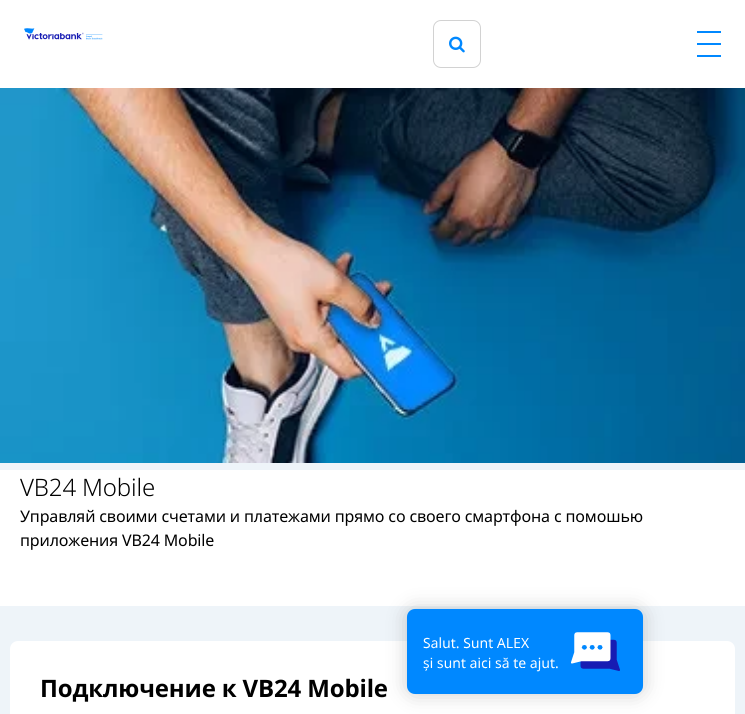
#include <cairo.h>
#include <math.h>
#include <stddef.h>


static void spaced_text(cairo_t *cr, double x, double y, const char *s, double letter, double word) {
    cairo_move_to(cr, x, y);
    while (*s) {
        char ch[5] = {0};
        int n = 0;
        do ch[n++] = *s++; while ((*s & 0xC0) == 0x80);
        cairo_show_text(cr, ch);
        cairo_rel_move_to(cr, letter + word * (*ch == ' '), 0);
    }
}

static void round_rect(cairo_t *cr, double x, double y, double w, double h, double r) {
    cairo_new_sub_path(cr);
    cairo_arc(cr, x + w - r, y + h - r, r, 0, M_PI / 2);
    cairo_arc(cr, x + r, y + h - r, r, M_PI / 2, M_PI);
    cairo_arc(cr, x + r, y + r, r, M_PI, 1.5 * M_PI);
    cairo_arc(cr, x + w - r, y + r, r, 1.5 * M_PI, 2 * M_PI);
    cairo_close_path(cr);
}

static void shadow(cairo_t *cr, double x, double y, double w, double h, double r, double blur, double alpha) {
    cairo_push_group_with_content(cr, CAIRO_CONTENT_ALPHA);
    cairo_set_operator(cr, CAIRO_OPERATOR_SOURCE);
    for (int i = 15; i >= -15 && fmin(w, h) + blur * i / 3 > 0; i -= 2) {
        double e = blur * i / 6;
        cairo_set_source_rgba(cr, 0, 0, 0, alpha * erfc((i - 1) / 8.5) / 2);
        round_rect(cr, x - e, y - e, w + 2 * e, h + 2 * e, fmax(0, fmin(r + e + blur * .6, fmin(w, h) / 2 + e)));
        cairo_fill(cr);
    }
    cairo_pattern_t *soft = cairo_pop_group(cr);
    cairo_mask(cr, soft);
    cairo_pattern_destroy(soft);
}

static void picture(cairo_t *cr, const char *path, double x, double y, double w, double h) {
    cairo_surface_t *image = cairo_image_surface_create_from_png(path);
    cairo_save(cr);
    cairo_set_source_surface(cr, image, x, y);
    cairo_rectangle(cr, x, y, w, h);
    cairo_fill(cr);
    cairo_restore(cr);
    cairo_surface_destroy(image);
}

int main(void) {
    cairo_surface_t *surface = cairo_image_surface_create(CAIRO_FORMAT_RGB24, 745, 714);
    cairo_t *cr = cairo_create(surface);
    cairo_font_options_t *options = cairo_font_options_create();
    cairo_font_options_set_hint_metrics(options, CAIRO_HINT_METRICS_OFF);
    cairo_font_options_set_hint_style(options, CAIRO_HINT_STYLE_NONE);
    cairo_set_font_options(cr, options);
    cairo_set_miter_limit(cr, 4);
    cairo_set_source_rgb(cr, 0.933, 0.957, 0.976);
    cairo_paint(cr);
    cairo_set_source_rgb(cr, 1, 1, 1);
    cairo_rectangle(cr, 0, 0, 745, 88);
    cairo_fill(cr);
    picture(cr, "img1.png", 24, 28, 79, 12);
    round_rect(cr, 433.5, 20.5, 47, 47, 7.5);
    cairo_set_source_rgb(cr, 0.824, 0.824, 0.824);
    cairo_set_line_width(cr, 1);
    cairo_stroke(cr);
    picture(cr, "img2.png", 449, 36, 16, 17);
    cairo_set_source_rgb(cr, 0, 0.533, 1);
    cairo_rectangle(cr, 697, 31, 24, 2);
    cairo_fill(cr);
    cairo_rectangle(cr, 697, 43, 24, 2);
    cairo_fill(cr);
    cairo_rectangle(cr, 697, 55, 24, 2);
    cairo_fill(cr);
    picture(cr, "img3.png", 0, 88, 745, 375);
    cairo_set_source_rgb(cr, 1, 1, 1);
    cairo_rectangle(cr, 0, 470, 745, 136);
    cairo_fill(cr);
    cairo_select_font_face(cr, "Noto Sans Light", CAIRO_FONT_SLANT_NORMAL, CAIRO_FONT_WEIGHT_NORMAL);
    cairo_set_font_size(cr, 24);
    cairo_set_source_rgb(cr, 0, 0, 0);
    spaced_text(cr, 20, 496, "VB24 Mobile", -0.15, 0);
    cairo_select_font_face(cr, "Noto Sans", CAIRO_FONT_SLANT_NORMAL, CAIRO_FONT_WEIGHT_NORMAL);
    cairo_set_font_size(cr, 16);
    spaced_text(cr, 20, 522, "Управляй своими счетами и платежами прямо со своего смартфона с помошью", -0.15, 0);
    spaced_text(cr, 20, 546, "приложения VB24 Mobile", -0.15, 0);
    cairo_set_source_rgb(cr, 1, 1, 1);
    round_rect(cr, 10, 641, 725, 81, 8);
    cairo_fill(cr);
    cairo_select_font_face(cr, "Noto Sans", CAIRO_FONT_SLANT_NORMAL, CAIRO_FONT_WEIGHT_BOLD);
    cairo_set_font_size(cr, 24);
    cairo_set_source_rgb(cr, 0, 0, 0);
    spaced_text(cr, 40, 697, "Подключение к VB24 Mobile", -0.15, 0);
    cairo_set_source_rgb(cr, 0, 0, 0);
    shadow(cr, 407, 609, 236, 85, 8, 10, 0.2);
    cairo_set_source_rgb(cr, 0, 0.533, 1);
    round_rect(cr, 407, 609, 236, 85, 8);
    cairo_fill(cr);
    picture(cr, "img4.png", 423, 632, 197, 40);
    cairo_surface_write_to_png(surface, "page.png");
    cairo_font_options_destroy(options);
    cairo_destroy(cr);
    cairo_surface_destroy(surface);
    return 0;
}
